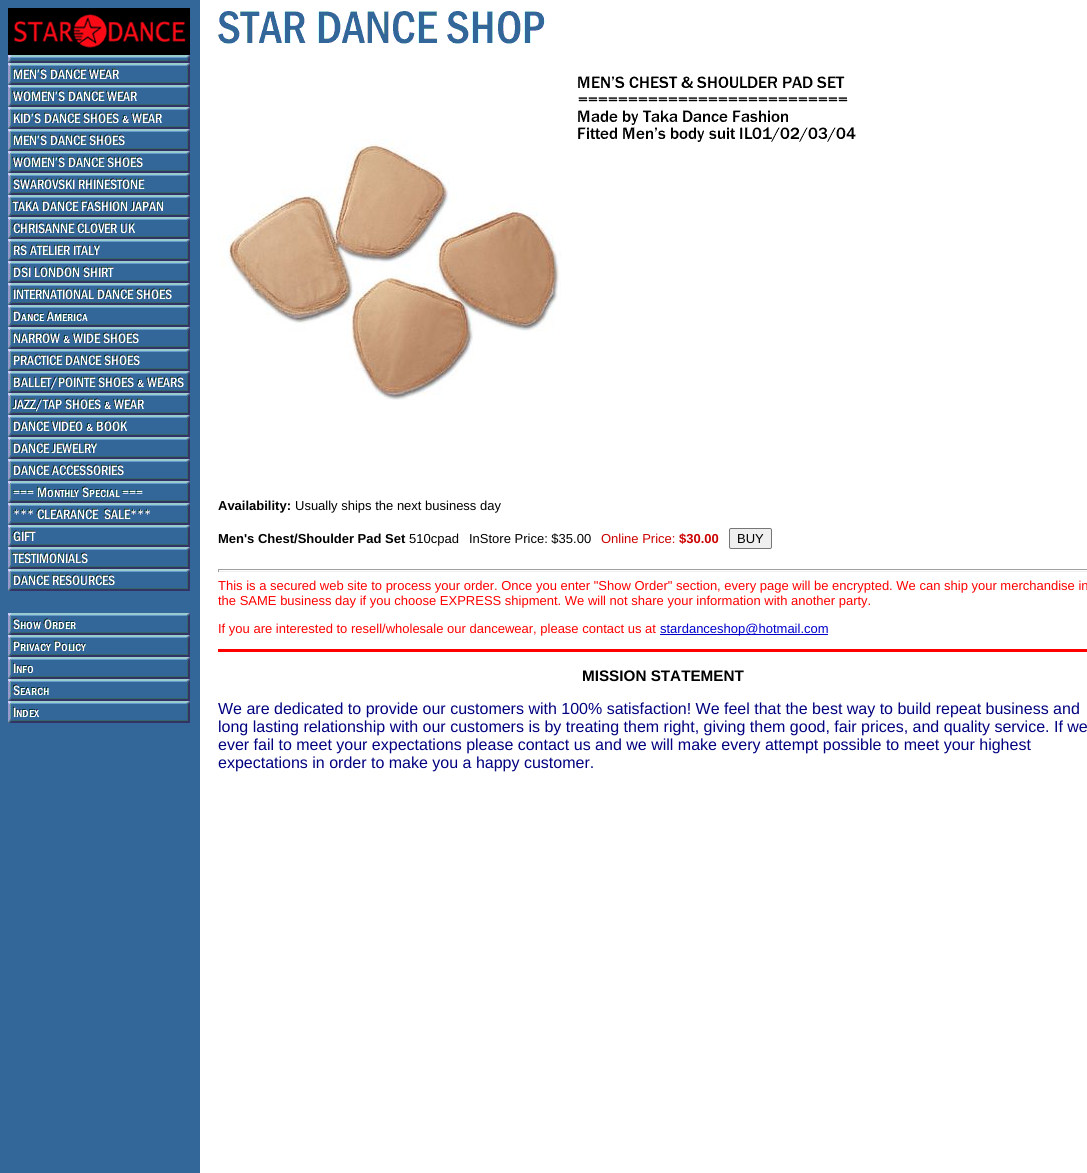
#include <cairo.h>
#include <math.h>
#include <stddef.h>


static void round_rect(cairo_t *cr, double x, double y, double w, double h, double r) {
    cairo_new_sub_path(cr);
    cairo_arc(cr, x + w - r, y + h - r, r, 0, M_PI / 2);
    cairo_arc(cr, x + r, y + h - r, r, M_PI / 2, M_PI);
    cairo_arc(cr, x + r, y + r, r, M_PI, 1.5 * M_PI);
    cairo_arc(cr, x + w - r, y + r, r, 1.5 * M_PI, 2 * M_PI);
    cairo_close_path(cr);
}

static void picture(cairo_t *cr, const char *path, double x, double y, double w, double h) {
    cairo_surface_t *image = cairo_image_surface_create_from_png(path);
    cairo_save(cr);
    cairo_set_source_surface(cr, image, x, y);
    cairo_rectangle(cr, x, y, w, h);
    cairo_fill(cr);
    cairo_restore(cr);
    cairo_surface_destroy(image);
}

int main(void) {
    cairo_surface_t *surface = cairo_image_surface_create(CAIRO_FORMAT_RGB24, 1087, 1173);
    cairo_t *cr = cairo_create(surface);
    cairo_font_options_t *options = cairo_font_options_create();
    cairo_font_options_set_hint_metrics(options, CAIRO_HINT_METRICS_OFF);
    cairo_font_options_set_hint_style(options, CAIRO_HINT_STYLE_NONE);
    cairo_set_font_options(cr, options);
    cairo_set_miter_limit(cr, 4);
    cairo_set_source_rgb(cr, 1, 1, 1);
    cairo_paint(cr);
    cairo_set_source_rgb(cr, 0.2, 0.4, 0.6);
    cairo_rectangle(cr, 0, 0, 200, 1173);
    cairo_fill(cr);
    picture(cr, "img1.png", 8, 8, 182, 715);
    picture(cr, "img2.png", 218, 11, 327, 33);
    picture(cr, "img3.png", 578, 76, 278, 66);
    picture(cr, "img4.png", 218, 139, 343, 261);
    cairo_select_font_face(cr, "Liberation Sans", CAIRO_FONT_SLANT_NORMAL, CAIRO_FONT_WEIGHT_BOLD);
    cairo_set_font_size(cr, 13);
    cairo_set_source_rgb(cr, 0, 0, 0);
    cairo_move_to(cr, 218, 510);
    cairo_show_text(cr, "Availability:");
    cairo_select_font_face(cr, "Liberation Sans", CAIRO_FONT_SLANT_NORMAL, CAIRO_FONT_WEIGHT_NORMAL);
    cairo_move_to(cr, 295, 510);
    cairo_show_text(cr, "Usually ships the next business day");
    cairo_select_font_face(cr, "Liberation Sans", CAIRO_FONT_SLANT_NORMAL, CAIRO_FONT_WEIGHT_BOLD);
    cairo_move_to(cr, 218, 543);
    cairo_show_text(cr, "Men's Chest/Shoulder Pad Set");
    cairo_select_font_face(cr, "Liberation Sans", CAIRO_FONT_SLANT_NORMAL, CAIRO_FONT_WEIGHT_NORMAL);
    cairo_move_to(cr, 409, 543);
    cairo_show_text(cr, "510cpad");
    cairo_move_to(cr, 469, 543);
    cairo_show_text(cr, "InStore Price: $35.00");
    cairo_set_source_rgb(cr, 0.8, 0, 0);
    cairo_move_to(cr, 601, 543);
    cairo_show_text(cr, "Online Price:");
    cairo_select_font_face(cr, "Liberation Sans", CAIRO_FONT_SLANT_NORMAL, CAIRO_FONT_WEIGHT_BOLD);
    cairo_move_to(cr, 679, 543);
    cairo_show_text(cr, "$30.00");
    cairo_set_source_rgb(cr, 0.937, 0.937, 0.937);
    round_rect(cr, 729.5, 528.5, 42, 20, 1.5);
    cairo_fill_preserve(cr);
    cairo_set_source_rgb(cr, 0.463, 0.463, 0.463);
    cairo_set_line_width(cr, 1);
    cairo_stroke(cr);
    cairo_select_font_face(cr, "Liberation Sans", CAIRO_FONT_SLANT_NORMAL, CAIRO_FONT_WEIGHT_NORMAL);
    cairo_set_source_rgb(cr, 0, 0, 0);
    cairo_move_to(cr, 737, 543);
    cairo_show_text(cr, "BUY");
    cairo_set_source_rgb(cr, 0.624, 0.624, 0.624);
    cairo_rectangle(cr, 218, 569, 869, 1);
    cairo_fill(cr);
    cairo_set_source_rgb(cr, 0.933, 0.933, 0.933);
    cairo_rectangle(cr, 218, 571, 869, 1);
    cairo_fill(cr);
    cairo_set_source_rgb(cr, 0.624, 0.624, 0.624);
    cairo_rectangle(cr, 218, 569, 1, 3);
    cairo_fill(cr);
    cairo_set_source_rgb(cr, 1, 0, 0);
    cairo_move_to(cr, 218, 590);
    cairo_show_text(cr, "This is a secured web site to process your order. Once you enter \"Show Order\" section, every page will be encrypted. We can ship your merchandise in");
    cairo_move_to(cr, 218, 605);
    cairo_show_text(cr, "the SAME business day if you choose EXPRESS shipment. We will not share your information with another party.");
    cairo_move_to(cr, 218, 633);
    cairo_show_text(cr, "If you are interested to resell/wholesale our dancewear, please contact us at");
    cairo_set_source_rgb(cr, 0, 0, 0.8);
    cairo_rectangle(cr, 660, 634, 168, 1);
    cairo_fill(cr);
    cairo_move_to(cr, 660, 633);
    cairo_show_text(cr, "stardanceshop@hotmail.com");
    cairo_set_source_rgb(cr, 1, 0, 0);
    cairo_rectangle(cr, 218, 649, 869, 3);
    cairo_fill(cr);
    cairo_select_font_face(cr, "Liberation Sans", CAIRO_FONT_SLANT_NORMAL, CAIRO_FONT_WEIGHT_BOLD);
    cairo_set_font_size(cr, 15.25);
    cairo_set_source_rgb(cr, 0, 0, 0);
    cairo_move_to(cr, 582, 681);
    cairo_show_text(cr, "MISSION STATEMENT");
    cairo_select_font_face(cr, "Liberation Sans", CAIRO_FONT_SLANT_NORMAL, CAIRO_FONT_WEIGHT_NORMAL);
    cairo_set_font_size(cr, 16);
    cairo_set_source_rgb(cr, 0, 0, 0.502);
    cairo_move_to(cr, 218, 714);
    cairo_show_text(cr, "We are dedicated to provide our customers with 100% satisfaction! We feel that the best way to build repeat business and");
    cairo_move_to(cr, 218, 732);
    cairo_show_text(cr, "long lasting relationship with our customers is by treating them right, giving them good, fair prices, and quality service. If we");
    cairo_move_to(cr, 218, 750);
    cairo_show_text(cr, "ever fail to meet your expectations please contact us and we will make every attempt possible to meet your highest");
    cairo_move_to(cr, 218, 768);
    cairo_show_text(cr, "expectations in order to make you a happy customer.");
    cairo_surface_write_to_png(surface, "page.png");
    cairo_font_options_destroy(options);
    cairo_destroy(cr);
    cairo_surface_destroy(surface);
    return 0;
}
